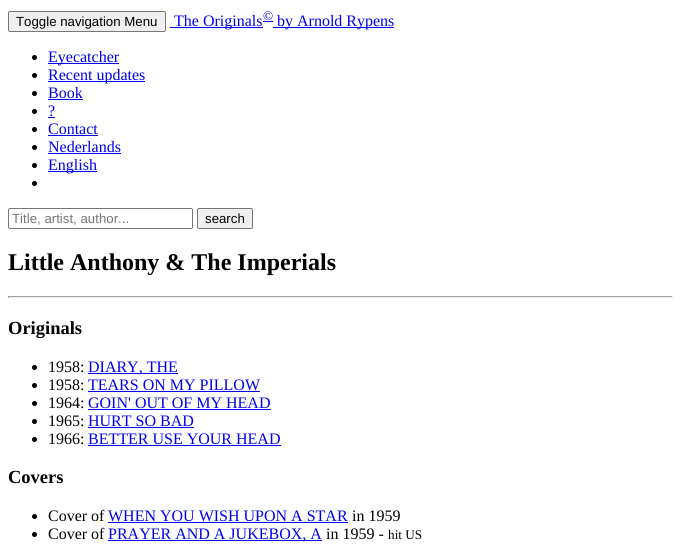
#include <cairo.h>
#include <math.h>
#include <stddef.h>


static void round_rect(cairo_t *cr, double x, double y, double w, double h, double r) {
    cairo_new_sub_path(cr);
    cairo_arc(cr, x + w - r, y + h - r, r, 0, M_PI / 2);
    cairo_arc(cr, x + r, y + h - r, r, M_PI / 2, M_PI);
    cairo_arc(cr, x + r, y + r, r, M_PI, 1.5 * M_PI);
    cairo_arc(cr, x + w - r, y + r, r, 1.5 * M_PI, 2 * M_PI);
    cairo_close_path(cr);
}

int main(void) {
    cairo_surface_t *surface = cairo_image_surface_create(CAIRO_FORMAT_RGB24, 681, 550);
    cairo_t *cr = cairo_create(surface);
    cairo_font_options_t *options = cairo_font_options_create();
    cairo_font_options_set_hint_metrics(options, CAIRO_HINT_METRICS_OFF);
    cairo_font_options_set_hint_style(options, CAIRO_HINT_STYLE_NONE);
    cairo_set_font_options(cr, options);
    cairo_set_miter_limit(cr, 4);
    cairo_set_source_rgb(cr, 1, 1, 1);
    cairo_paint(cr);
    cairo_set_source_rgb(cr, 0.937, 0.937, 0.937);
    round_rect(cr, 8.5, 11.5, 157, 20, 1.5);
    cairo_fill_preserve(cr);
    cairo_set_source_rgb(cr, 0.463, 0.463, 0.463);
    cairo_set_line_width(cr, 1);
    cairo_stroke(cr);
    cairo_select_font_face(cr, "Liberation Sans", CAIRO_FONT_SLANT_NORMAL, CAIRO_FONT_WEIGHT_NORMAL);
    cairo_set_font_size(cr, 13.25);
    cairo_set_source_rgb(cr, 0, 0, 0);
    cairo_move_to(cr, 16, 26);
    cairo_show_text(cr, "Toggle navigation Menu");
    cairo_set_source_rgb(cr, 0, 0, 0.933);
    cairo_rectangle(cr, 170, 27, 93, 1);
    cairo_fill(cr);
    cairo_select_font_face(cr, "Liberation Serif", CAIRO_FONT_SLANT_NORMAL, CAIRO_FONT_WEIGHT_NORMAL);
    cairo_set_font_size(cr, 16);
    cairo_move_to(cr, 174, 26);
    cairo_show_text(cr, "The Originals");
    cairo_rectangle(cr, 263, 21, 10, 1);
    cairo_fill(cr);
    cairo_set_font_size(cr, 13.25);
    cairo_move_to(cr, 263, 20);
    cairo_show_text(cr, "©");
    cairo_rectangle(cr, 273, 27, 121, 1);
    cairo_fill(cr);
    cairo_set_font_size(cr, 16);
    cairo_move_to(cr, 277, 26);
    cairo_show_text(cr, "by Arnold Rypens");
    cairo_set_source_rgb(cr, 0, 0, 0);
    cairo_new_path(cr);
    cairo_arc(cr, 34.5, 57.5, 2.5, 0, 2 * M_PI);
    cairo_fill(cr);
    cairo_set_source_rgb(cr, 0, 0, 0.933);
    cairo_rectangle(cr, 48, 63, 71, 1);
    cairo_fill(cr);
    cairo_move_to(cr, 48, 62);
    cairo_show_text(cr, "Eyecatcher");
    cairo_set_source_rgb(cr, 0, 0, 0);
    cairo_new_path(cr);
    cairo_arc(cr, 34.5, 75.5, 2.5, 0, 2 * M_PI);
    cairo_fill(cr);
    cairo_set_source_rgb(cr, 0, 0, 0.933);
    cairo_rectangle(cr, 48, 81, 97, 1);
    cairo_fill(cr);
    cairo_move_to(cr, 48, 80);
    cairo_show_text(cr, "Recent updates");
    cairo_set_source_rgb(cr, 0, 0, 0);
    cairo_new_path(cr);
    cairo_arc(cr, 34.5, 93.5, 2.5, 0, 2 * M_PI);
    cairo_fill(cr);
    cairo_set_source_rgb(cr, 0, 0, 0.933);
    cairo_move_to(cr, 48, 98);
    cairo_show_text(cr, "Book");
    cairo_rectangle(cr, 48, 99, 35, 1);
    cairo_fill(cr);
    cairo_set_source_rgb(cr, 0, 0, 0);
    cairo_arc(cr, 34.5, 111.5, 2.5, 0, 2 * M_PI);
    cairo_fill(cr);
    cairo_set_source_rgb(cr, 0, 0, 0.933);
    cairo_move_to(cr, 48, 116);
    cairo_show_text(cr, "?");
    cairo_rectangle(cr, 48, 117, 7, 1);
    cairo_fill(cr);
    cairo_set_source_rgb(cr, 0, 0, 0);
    cairo_arc(cr, 34.5, 129.5, 2.5, 0, 2 * M_PI);
    cairo_fill(cr);
    cairo_set_source_rgb(cr, 0, 0, 0.933);
    cairo_move_to(cr, 48, 134);
    cairo_show_text(cr, "Contact");
    cairo_rectangle(cr, 48, 135, 50, 1);
    cairo_fill(cr);
    cairo_set_source_rgb(cr, 0, 0, 0);
    cairo_arc(cr, 34.5, 147.5, 2.5, 0, 2 * M_PI);
    cairo_fill(cr);
    cairo_set_source_rgb(cr, 0, 0, 0.933);
    cairo_move_to(cr, 48, 152);
    cairo_show_text(cr, "Nederlands");
    cairo_rectangle(cr, 48, 153, 73, 1);
    cairo_fill(cr);
    cairo_set_source_rgb(cr, 0, 0, 0);
    cairo_arc(cr, 34.5, 165.5, 2.5, 0, 2 * M_PI);
    cairo_fill(cr);
    cairo_set_source_rgb(cr, 0, 0, 0.933);
    cairo_rectangle(cr, 48, 171, 49, 1);
    cairo_fill(cr);
    cairo_move_to(cr, 48, 170);
    cairo_show_text(cr, "English");
    cairo_set_source_rgb(cr, 0, 0, 0);
    cairo_new_path(cr);
    cairo_arc(cr, 34.5, 183.5, 2.5, 0, 2 * M_PI);
    cairo_fill(cr);
    round_rect(cr, 8.5, 208.5, 184, 20, 1.5);
    cairo_set_source_rgb(cr, 0.463, 0.463, 0.463);
    cairo_stroke(cr);
    cairo_select_font_face(cr, "Liberation Sans", CAIRO_FONT_SLANT_NORMAL, CAIRO_FONT_WEIGHT_NORMAL);
    cairo_set_font_size(cr, 13.25);
    cairo_set_source_rgb(cr, 0.459, 0.459, 0.459);
    cairo_move_to(cr, 12, 223);
    cairo_show_text(cr, "Title, artist, author...");
    cairo_set_source_rgb(cr, 0.937, 0.937, 0.937);
    round_rect(cr, 197.5, 208.5, 55, 20, 1.5);
    cairo_fill_preserve(cr);
    cairo_set_source_rgb(cr, 0.463, 0.463, 0.463);
    cairo_stroke(cr);
    cairo_set_source_rgb(cr, 0, 0, 0);
    cairo_move_to(cr, 205, 223);
    cairo_show_text(cr, "search");
    cairo_select_font_face(cr, "Liberation Serif", CAIRO_FONT_SLANT_NORMAL, CAIRO_FONT_WEIGHT_BOLD);
    cairo_set_font_size(cr, 24);
    cairo_move_to(cr, 8, 270);
    cairo_show_text(cr, "Little Anthony & The Imperials");
    cairo_set_source_rgb(cr, 0.624, 0.624, 0.624);
    cairo_rectangle(cr, 8, 296, 665, 1);
    cairo_fill(cr);
    cairo_set_source_rgb(cr, 0.933, 0.933, 0.933);
    cairo_rectangle(cr, 672, 296, 1, 2);
    cairo_fill(cr);
    cairo_rectangle(cr, 8, 297, 665, 1);
    cairo_fill(cr);
    cairo_set_source_rgb(cr, 0.624, 0.624, 0.624);
    cairo_rectangle(cr, 8, 296, 1, 2);
    cairo_fill(cr);
    cairo_set_font_size(cr, 18.5);
    cairo_set_source_rgb(cr, 0, 0, 0);
    cairo_move_to(cr, 8, 334);
    cairo_show_text(cr, "Originals");
    cairo_new_path(cr);
    cairo_arc(cr, 34.5, 367.5, 2.5, 0, 2 * M_PI);
    cairo_fill(cr);
    cairo_select_font_face(cr, "Liberation Serif", CAIRO_FONT_SLANT_NORMAL, CAIRO_FONT_WEIGHT_NORMAL);
    cairo_set_font_size(cr, 16);
    cairo_move_to(cr, 48, 372);
    cairo_show_text(cr, "1958:");
    cairo_set_source_rgb(cr, 0, 0, 0.933);
    cairo_rectangle(cr, 88, 373, 90, 1);
    cairo_fill(cr);
    cairo_move_to(cr, 88, 372);
    cairo_show_text(cr, "DIARY, THE");
    cairo_set_source_rgb(cr, 0, 0, 0);
    cairo_new_path(cr);
    cairo_arc(cr, 34.5, 385.5, 2.5, 0, 2 * M_PI);
    cairo_fill(cr);
    cairo_move_to(cr, 48, 390);
    cairo_show_text(cr, "1958:");
    cairo_set_source_rgb(cr, 0, 0, 0.933);
    cairo_move_to(cr, 88, 390);
    cairo_show_text(cr, "TEARS ON MY PILLOW");
    cairo_rectangle(cr, 88, 391, 172, 1);
    cairo_fill(cr);
    cairo_set_source_rgb(cr, 0, 0, 0);
    cairo_arc(cr, 34.5, 403.5, 2.5, 0, 2 * M_PI);
    cairo_fill(cr);
    cairo_move_to(cr, 48, 408);
    cairo_show_text(cr, "1964:");
    cairo_set_source_rgb(cr, 0, 0, 0.933);
    cairo_move_to(cr, 88, 408);
    cairo_show_text(cr, "GOIN' OUT OF MY HEAD");
    cairo_rectangle(cr, 88, 409, 183, 1);
    cairo_fill(cr);
    cairo_set_source_rgb(cr, 0, 0, 0);
    cairo_arc(cr, 34.5, 421.5, 2.5, 0, 2 * M_PI);
    cairo_fill(cr);
    cairo_move_to(cr, 48, 426);
    cairo_show_text(cr, "1965:");
    cairo_set_source_rgb(cr, 0, 0, 0.933);
    cairo_move_to(cr, 88, 426);
    cairo_show_text(cr, "HURT SO BAD");
    cairo_rectangle(cr, 88, 427, 106, 1);
    cairo_fill(cr);
    cairo_set_source_rgb(cr, 0, 0, 0);
    cairo_arc(cr, 34.5, 439.5, 2.5, 0, 2 * M_PI);
    cairo_fill(cr);
    cairo_move_to(cr, 48, 444);
    cairo_show_text(cr, "1966:");
    cairo_set_source_rgb(cr, 0, 0, 0.933);
    cairo_move_to(cr, 88, 444);
    cairo_show_text(cr, "BETTER USE YOUR HEAD");
    cairo_rectangle(cr, 88, 445, 193, 1);
    cairo_fill(cr);
    cairo_select_font_face(cr, "Liberation Serif", CAIRO_FONT_SLANT_NORMAL, CAIRO_FONT_WEIGHT_BOLD);
    cairo_set_font_size(cr, 18.5);
    cairo_set_source_rgb(cr, 0, 0, 0);
    cairo_move_to(cr, 8, 483);
    cairo_show_text(cr, "Covers");
    cairo_new_path(cr);
    cairo_arc(cr, 34.5, 516.5, 2.5, 0, 2 * M_PI);
    cairo_fill(cr);
    cairo_select_font_face(cr, "Liberation Serif", CAIRO_FONT_SLANT_NORMAL, CAIRO_FONT_WEIGHT_NORMAL);
    cairo_set_font_size(cr, 16);
    cairo_move_to(cr, 48, 521);
    cairo_show_text(cr, "Cover of");
    cairo_set_source_rgb(cr, 0, 0, 0.933);
    cairo_move_to(cr, 108, 521);
    cairo_show_text(cr, "WHEN YOU WISH UPON A STAR");
    cairo_rectangle(cr, 108, 522, 240, 1);
    cairo_fill(cr);
    cairo_set_source_rgb(cr, 0, 0, 0);
    cairo_move_to(cr, 352, 521);
    cairo_show_text(cr, "in 1959");
    cairo_new_path(cr);
    cairo_arc(cr, 34.5, 534.5, 2.5, 0, 2 * M_PI);
    cairo_fill(cr);
    cairo_move_to(cr, 48, 539);
    cairo_show_text(cr, "Cover of");
    cairo_set_source_rgb(cr, 0, 0, 0.933);
    cairo_rectangle(cr, 108, 540, 214, 1);
    cairo_fill(cr);
    cairo_move_to(cr, 108, 539);
    cairo_show_text(cr, "PRAYER AND A JUKEBOX, A");
    cairo_set_source_rgb(cr, 0, 0, 0);
    cairo_move_to(cr, 326, 539);
    cairo_show_text(cr, "in 1959 -");
    cairo_set_font_size(cr, 13.25);
    cairo_move_to(cr, 388, 539);
    cairo_show_text(cr, "hit US");
    cairo_surface_write_to_png(surface, "page.png");
    cairo_font_options_destroy(options);
    cairo_destroy(cr);
    cairo_surface_destroy(surface);
    return 0;
}
